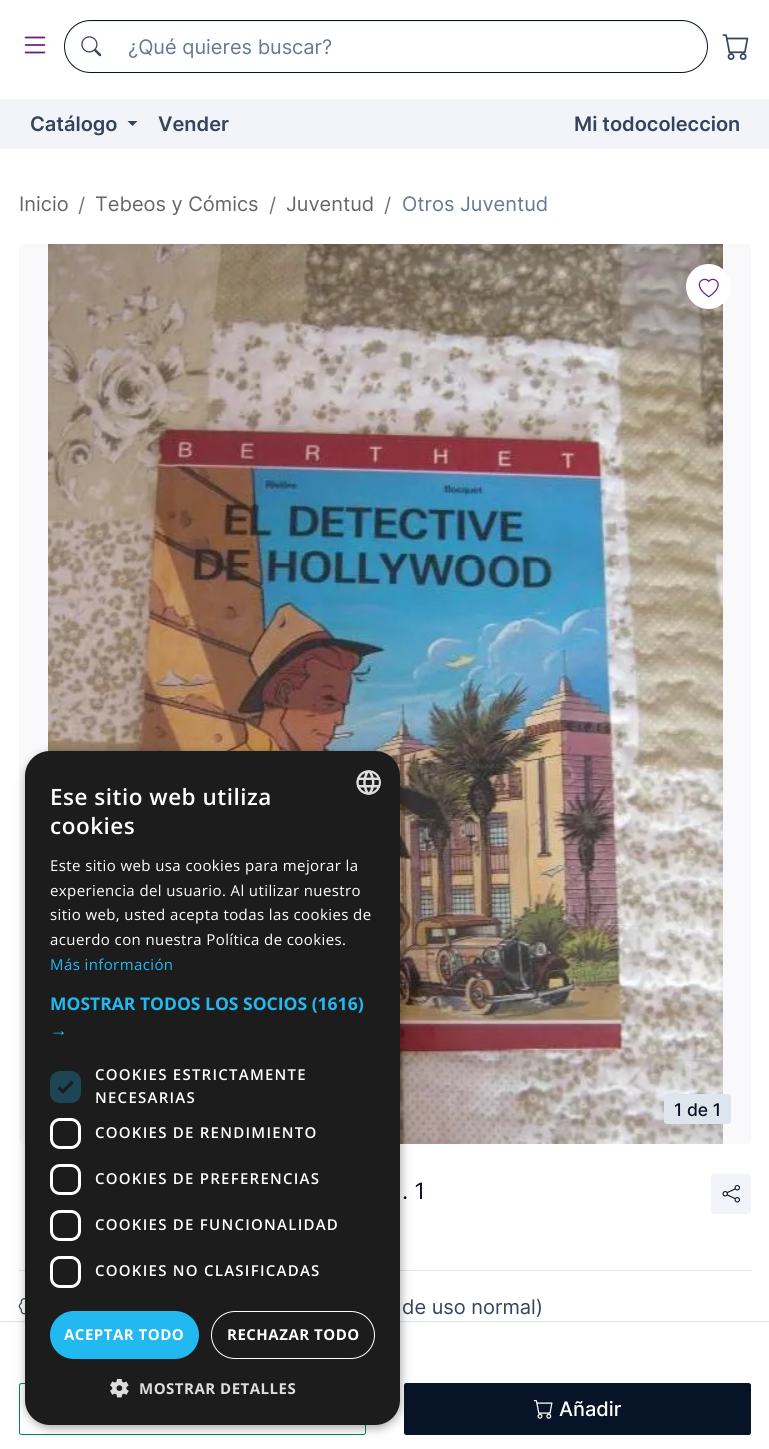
#include <cairo.h>
#include <math.h>
#include <stddef.h>


static void spaced_text(cairo_t *cr, double x, double y, const char *s, double letter, double word) {
    cairo_move_to(cr, x, y);
    while (*s) {
        char ch[5] = {0};
        int n = 0;
        do ch[n++] = *s++; while ((*s & 0xC0) == 0x80);
        cairo_show_text(cr, ch);
        cairo_rel_move_to(cr, letter + word * (*ch == ' '), 0);
    }
}

static void round_rect(cairo_t *cr, double x, double y, double w, double h, double r) {
    cairo_new_sub_path(cr);
    cairo_arc(cr, x + w - r, y + h - r, r, 0, M_PI / 2);
    cairo_arc(cr, x + r, y + h - r, r, M_PI / 2, M_PI);
    cairo_arc(cr, x + r, y + r, r, M_PI, 1.5 * M_PI);
    cairo_arc(cr, x + w - r, y + r, r, 1.5 * M_PI, 2 * M_PI);
    cairo_close_path(cr);
}

static void shadow(cairo_t *cr, double x, double y, double w, double h, double r, double blur, double alpha) {
    cairo_push_group_with_content(cr, CAIRO_CONTENT_ALPHA);
    cairo_set_operator(cr, CAIRO_OPERATOR_SOURCE);
    for (int i = 15; i >= -15 && fmin(w, h) + blur * i / 3 > 0; i -= 2) {
        double e = blur * i / 6;
        cairo_set_source_rgba(cr, 0, 0, 0, alpha * erfc((i - 1) / 8.5) / 2);
        round_rect(cr, x - e, y - e, w + 2 * e, h + 2 * e, fmax(0, fmin(r + e + blur * .6, fmin(w, h) / 2 + e)));
        cairo_fill(cr);
    }
    cairo_pattern_t *soft = cairo_pop_group(cr);
    cairo_mask(cr, soft);
    cairo_pattern_destroy(soft);
}

static void picture(cairo_t *cr, const char *path, double x, double y, double w, double h) {
    cairo_surface_t *image = cairo_image_surface_create_from_png(path);
    cairo_save(cr);
    cairo_set_source_surface(cr, image, x, y);
    cairo_rectangle(cr, x, y, w, h);
    cairo_fill(cr);
    cairo_restore(cr);
    cairo_surface_destroy(image);
}

int main(void) {
    cairo_surface_t *surface = cairo_image_surface_create(CAIRO_FORMAT_RGB24, 769, 1449);
    cairo_t *cr = cairo_create(surface);
    cairo_font_options_t *options = cairo_font_options_create();
    cairo_font_options_set_hint_metrics(options, CAIRO_HINT_METRICS_OFF);
    cairo_font_options_set_hint_style(options, CAIRO_HINT_STYLE_NONE);
    cairo_set_font_options(cr, options);
    cairo_set_miter_limit(cr, 4);
    cairo_set_source_rgb(cr, 1, 1, 1);
    cairo_paint(cr);
    picture(cr, "img1.png", 24, 36, 22, 18);
    cairo_set_source_rgb(cr, 0.925, 0.925, 0.925);
    cairo_new_path(cr);
    cairo_move_to(cr, 90, 22);
    cairo_line_to(cr, 681, 22);
    cairo_curve_to(cr, 695, 22, 705, 33, 706, 47);
    cairo_curve_to(cr, 707, 33, 695, 21, 681, 21);
    cairo_line_to(cr, 90, 21);
    cairo_line_to(cr, 85, 22);
    cairo_curve_to(cr, 73, 24, 65, 35, 65, 47);
    cairo_curve_to(cr, 66, 33, 76, 22, 90, 22);
    cairo_close_path(cr);
    cairo_fill(cr);
    round_rect(cr, 64.5, 20.5, 643, 52, 26);
    cairo_set_source_rgb(cr, 0.031, 0.075, 0.153);
    cairo_set_line_width(cr, 1);
    cairo_stroke(cr);
    picture(cr, "img2.png", 81, 36, 21, 21);
    cairo_select_font_face(cr, "Inter", CAIRO_FONT_SLANT_NORMAL, CAIRO_FONT_WEIGHT_NORMAL);
    cairo_set_font_size(cr, 20);
    cairo_set_source_rgb(cr, 0.408, 0.467, 0.573);
    cairo_move_to(cr, 128, 54);
    cairo_show_text(cr, "¿Qué quieres buscar?");
    picture(cr, "img3.png", 722, 34, 27, 26);
    cairo_set_source_rgb(cr, 0.949, 0.957, 0.973);
    cairo_rectangle(cr, 0, 99, 769, 50);
    cairo_fill(cr);
    cairo_select_font_face(cr, "Inter SemiBold", CAIRO_FONT_SLANT_NORMAL, CAIRO_FONT_WEIGHT_NORMAL);
    cairo_set_source_rgb(cr, 0.212, 0.263, 0.353);
    cairo_move_to(cr, 30, 131);
    cairo_show_text(cr, "Catálogo");
    cairo_new_path(cr);
    cairo_move_to(cr, 127.5, 121);
    cairo_line_to(cr, 137.5, 121);
    cairo_line_to(cr, 132.5, 126);
    cairo_close_path(cr);
    cairo_fill(cr);
    cairo_move_to(cr, 158, 131);
    cairo_show_text(cr, "Vender");
    cairo_move_to(cr, 574, 131);
    cairo_show_text(cr, "Mi todocoleccion");
    cairo_select_font_face(cr, "Inter", CAIRO_FONT_SLANT_NORMAL, CAIRO_FONT_WEIGHT_NORMAL);
    cairo_set_source_rgb(cr, 0.4, 0.4, 0.4);
    cairo_move_to(cr, 19, 211);
    cairo_show_text(cr, "Inicio");
    cairo_set_source_rgb(cr, 0.424, 0.459, 0.49);
    cairo_move_to(cr, 78, 212);
    cairo_show_text(cr, "/");
    cairo_set_source_rgb(cr, 0.4, 0.4, 0.4);
    cairo_move_to(cr, 95, 211);
    cairo_show_text(cr, "Tebeos y Cómics");
    cairo_set_source_rgb(cr, 0.424, 0.459, 0.49);
    cairo_move_to(cr, 269, 212);
    cairo_show_text(cr, "/");
    cairo_set_source_rgb(cr, 0.4, 0.4, 0.4);
    cairo_move_to(cr, 286, 211);
    cairo_show_text(cr, "Juventud");
    cairo_set_source_rgb(cr, 0.424, 0.459, 0.49);
    cairo_move_to(cr, 384, 212);
    cairo_show_text(cr, "/");
    cairo_set_source_rgb(cr, 0.408, 0.467, 0.573);
    cairo_move_to(cr, 402, 211);
    cairo_show_text(cr, "Otros Juventud");
    cairo_set_source_rgb(cr, 0.973, 0.976, 0.988);
    round_rect(cr, 19, 244, 732, 900, 5);
    cairo_fill(cr);
    picture(cr, "img5.png", 48, 244, 675, 900);
    cairo_set_source_rgb(cr, 1, 1, 1);
    cairo_arc(cr, 708.5, 286.5, 22.5, 0, 2 * M_PI);
    cairo_fill(cr);
    picture(cr, "img4.png", 698, 278, 21, 20);
    cairo_set_source_rgb(cr, 0.875, 0.898, 0.925);
    round_rect(cr, 664.5, 1094.5, 66, 29, 2.5);
    cairo_fill_preserve(cr);
    cairo_stroke(cr);
    cairo_select_font_face(cr, "Inter Medium", CAIRO_FONT_SLANT_NORMAL, CAIRO_FONT_WEIGHT_NORMAL);
    cairo_set_font_size(cr, 17.5);
    cairo_set_source_rgb(cr, 0.031, 0.075, 0.153);
    cairo_move_to(cr, 674, 1116);
    cairo_show_text(cr, "1 de 1");
    cairo_select_font_face(cr, "Inter", CAIRO_FONT_SLANT_NORMAL, CAIRO_FONT_WEIGHT_NORMAL);
    cairo_set_font_size(cr, 22.5);
    cairo_move_to(cr, 402, 1199);
    cairo_show_text(cr, ". 1");
    cairo_set_source_rgb(cr, 0.949, 0.957, 0.973);
    round_rect(cr, 711, 1174, 40, 40, 2.5);
    cairo_fill(cr);
    picture(cr, "img6.png", 722, 1185, 18, 18);
    cairo_set_source_rgb(cr, 0.875, 0.898, 0.925);
    cairo_rectangle(cr, 19, 1270, 732, 1);
    cairo_fill(cr);
    picture(cr, "img7.png", 18, 1298, 7, 17);
    cairo_set_font_size(cr, 20);
    cairo_set_source_rgb(cr, 0.212, 0.263, 0.353);
    cairo_move_to(cr, 402, 1314);
    cairo_show_text(cr, "de uso normal)");
    cairo_set_source_rgb(cr, 0.973, 0.976, 0.98);
    cairo_rectangle(cr, 0, 1322, 769, 1);
    cairo_fill(cr);
    cairo_set_source_rgb(cr, 0.875, 0.898, 0.925);
    cairo_rectangle(cr, 0, 1321, 769, 1);
    cairo_fill(cr);
    round_rect(cr, 19.5, 1383.5, 346, 51, 2);
    cairo_set_source_rgb(cr, 0, 0.533, 0.341);
    cairo_stroke(cr);
    cairo_set_source_rgb(cr, 0.031, 0.075, 0.153);
    round_rect(cr, 404.5, 1383.5, 346, 51, 2);
    cairo_fill_preserve(cr);
    cairo_stroke(cr);
    picture(cr, "img8.png", 533, 1400, 20, 19);
    cairo_select_font_face(cr, "Inter Medium", CAIRO_FONT_SLANT_NORMAL, CAIRO_FONT_WEIGHT_NORMAL);
    cairo_set_source_rgb(cr, 1, 1, 1);
    cairo_move_to(cr, 559, 1416);
    cairo_show_text(cr, "Añadir");
    cairo_set_source_rgb(cr, 0, 0, 0);
    shadow(cr, 26, 754, 375, 674, 25, 5, 0.35);
    cairo_set_source_rgb(cr, 0.11, 0.11, 0.11);
    round_rect(cr, 25, 751, 375, 674, 25);
    cairo_fill(cr);
    picture(cr, "img9.png", 356, 770, 25, 25);
    cairo_select_font_face(cr, "Open Sans SemiBold", CAIRO_FONT_SLANT_NORMAL, CAIRO_FONT_WEIGHT_NORMAL);
    cairo_set_font_size(cr, 22.5);
    cairo_set_source_rgb(cr, 1, 1, 1);
    spaced_text(cr, 50, 805, "Ese sitio web utiliza", 0.5, 0);
    spaced_text(cr, 50, 834, "cookies", 0.5, 0);
    cairo_select_font_face(cr, "Open Sans", CAIRO_FONT_SLANT_NORMAL, CAIRO_FONT_WEIGHT_NORMAL);
    cairo_set_font_size(cr, 15);
    spaced_text(cr, 50, 871, "Este sitio web usa cookies para mejorar la", 0.4, 0);
    spaced_text(cr, 50, 896, "experiencia del usuario. Al utilizar nuestro", 0.4, 0);
    spaced_text(cr, 50, 920, "sitio web, usted acepta todas las cookies de", 0.4, 0);
    spaced_text(cr, 50, 945, "acuerdo con nuestra Política de cookies.", 0.4, 0);
    cairo_set_source_rgb(cr, 0.133, 0.722, 0.941);
    spaced_text(cr, 50, 970, "Más información", 0.4, 0);
    cairo_select_font_face(cr, "Open Sans", CAIRO_FONT_SLANT_NORMAL, CAIRO_FONT_WEIGHT_BOLD);
    cairo_set_font_size(cr, 17.5);
    cairo_move_to(cr, 50, 1010);
    cairo_show_text(cr, "MOSTRAR TODOS LOS SOCIOS (1616)");
    cairo_select_font_face(cr, "Liberation Sans", CAIRO_FONT_SLANT_NORMAL, CAIRO_FONT_WEIGHT_BOLD);
    cairo_move_to(cr, 50, 1036);
    cairo_show_text(cr, "→");
    cairo_set_source_rgb(cr, 0.118, 0.271, 0.325);
    round_rect(cr, 50, 1071, 31, 32, 10);
    cairo_fill(cr);
    cairo_new_path(cr);
    cairo_move_to(cr, 58.5, 1087.5);
    cairo_line_to(cr, 63, 1091.5);
    cairo_line_to(cr, 72.5, 1082);
    cairo_set_source_rgb(cr, 0.11, 0.11, 0.11);
    cairo_set_line_width(cr, 3.3);
    cairo_stroke(cr);
    cairo_select_font_face(cr, "Open Sans SemiBold", CAIRO_FONT_SLANT_NORMAL, CAIRO_FONT_WEIGHT_NORMAL);
    cairo_set_font_size(cr, 15);
    cairo_set_source_rgb(cr, 1, 1, 1);
    spaced_text(cr, 95, 1080, "COOKIES ESTRICTAMENTE", 1.25, 0);
    spaced_text(cr, 95, 1103, "NECESARIAS", 1.25, 0);
    round_rect(cr, 51.5, 1119.5, 28, 28, 8.5);
    cairo_set_line_width(cr, 3);
    cairo_stroke(cr);
    spaced_text(cr, 95, 1138, "COOKIES DE RENDIMIENTO", 1.25, 0);
    round_rect(cr, 51.5, 1165.5, 28, 28, 8.5);
    cairo_stroke(cr);
    spaced_text(cr, 95, 1184, "COOKIES DE PREFERENCIAS", 1.25, 0);
    round_rect(cr, 51.5, 1211.5, 28, 28, 8.5);
    cairo_stroke(cr);
    spaced_text(cr, 95, 1230, "COOKIES DE FUNCIONALIDAD", 1.25, 0);
    round_rect(cr, 51.5, 1257.5, 28, 29, 8.5);
    cairo_stroke(cr);
    spaced_text(cr, 95, 1276, "COOKIES NO CLASIFICADAS", 1.25, 0);
    cairo_set_source_rgb(cr, 0.133, 0.722, 0.941);
    round_rect(cr, 50, 1311, 149, 48, 24);
    cairo_fill(cr);
    cairo_select_font_face(cr, "Open Sans", CAIRO_FONT_SLANT_NORMAL, CAIRO_FONT_WEIGHT_BOLD);
    cairo_set_source_rgb(cr, 1, 1, 1);
    spaced_text(cr, 64, 1340, "ACEPTAR TODO", 0.5, 0);
    round_rect(cr, 211.5, 1311.5, 163, 47, 23.5);
    cairo_set_line_width(cr, 1);
    cairo_stroke(cr);
    spaced_text(cr, 227, 1340, "RECHAZAR TODO", 0.5, 0);
    picture(cr, "img10.png", 110, 1379, 19, 19);
    cairo_set_source_rgb(cr, 0.867, 0.867, 0.867);
    spaced_text(cr, 139, 1394, "MOSTRAR DETALLES", 0.5, 0);
    cairo_surface_write_to_png(surface, "page.png");
    cairo_font_options_destroy(options);
    cairo_destroy(cr);
    cairo_surface_destroy(surface);
    return 0;
}
